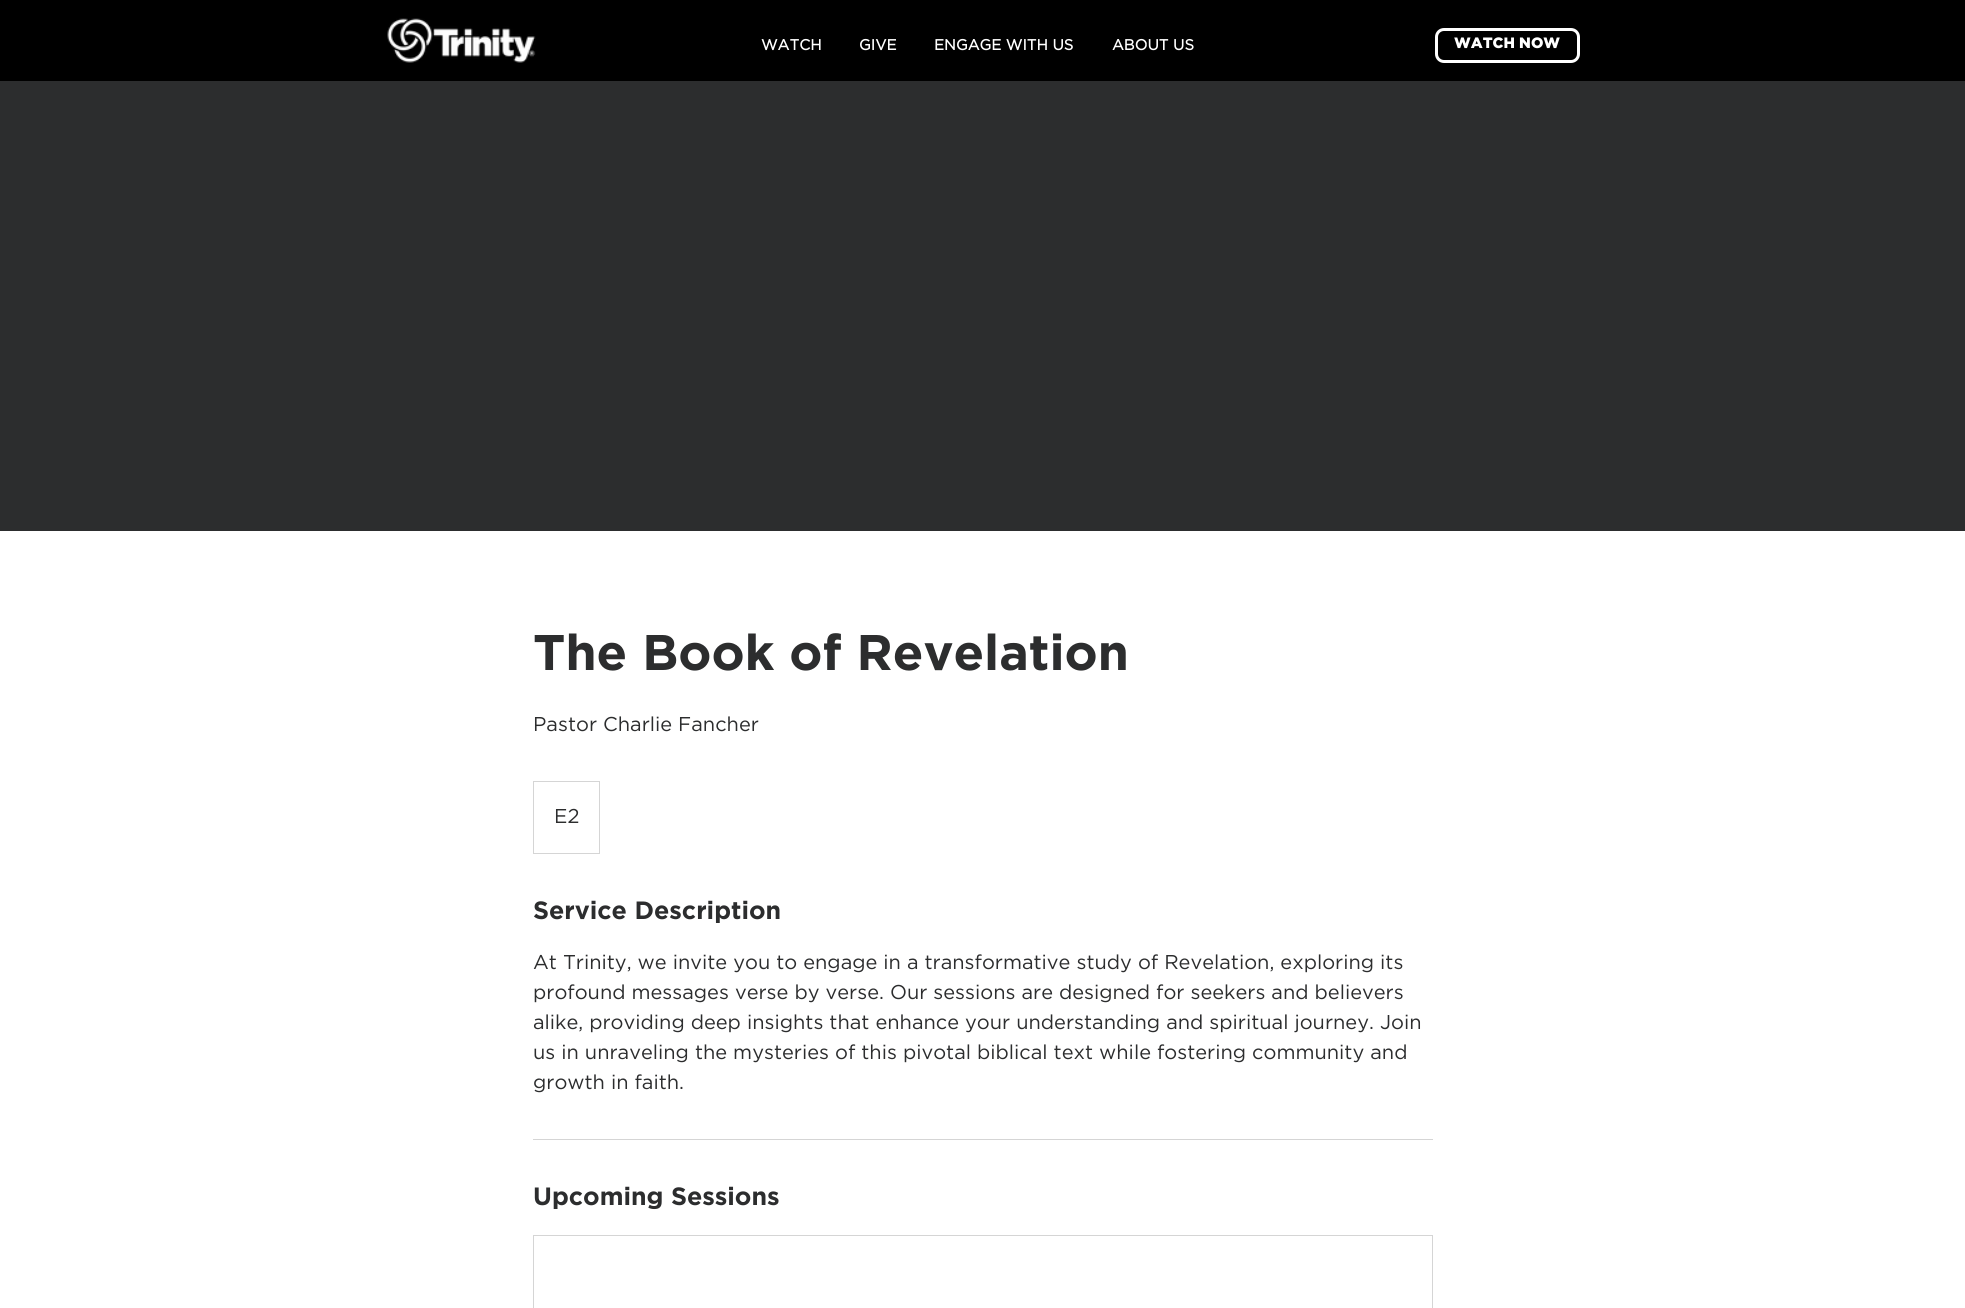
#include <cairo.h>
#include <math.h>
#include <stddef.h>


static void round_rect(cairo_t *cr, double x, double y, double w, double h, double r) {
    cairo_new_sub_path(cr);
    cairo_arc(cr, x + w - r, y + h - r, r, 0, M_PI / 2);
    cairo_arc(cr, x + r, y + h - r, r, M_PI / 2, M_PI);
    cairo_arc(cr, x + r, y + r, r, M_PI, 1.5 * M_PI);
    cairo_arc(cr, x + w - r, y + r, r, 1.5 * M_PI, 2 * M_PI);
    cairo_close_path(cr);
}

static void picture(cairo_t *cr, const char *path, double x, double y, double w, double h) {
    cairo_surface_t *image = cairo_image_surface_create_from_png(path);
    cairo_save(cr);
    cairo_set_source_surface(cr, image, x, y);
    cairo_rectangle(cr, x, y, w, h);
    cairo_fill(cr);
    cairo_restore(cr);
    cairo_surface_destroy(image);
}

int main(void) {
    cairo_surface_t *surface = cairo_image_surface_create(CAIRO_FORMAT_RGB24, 1965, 1308);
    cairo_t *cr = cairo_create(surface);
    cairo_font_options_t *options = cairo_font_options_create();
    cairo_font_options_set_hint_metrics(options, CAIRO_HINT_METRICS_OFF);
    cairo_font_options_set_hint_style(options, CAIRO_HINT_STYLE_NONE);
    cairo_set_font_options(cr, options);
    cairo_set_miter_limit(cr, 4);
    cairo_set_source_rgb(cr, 1, 1, 1);
    cairo_paint(cr);
    cairo_set_source_rgb(cr, 0, 0, 0);
    cairo_rectangle(cr, 0, 0, 1965, 81);
    cairo_fill(cr);
    picture(cr, "img1.png", 387, 18, 149, 45);
    cairo_select_font_face(cr, "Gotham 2", CAIRO_FONT_SLANT_NORMAL, CAIRO_FONT_WEIGHT_BOLD);
    cairo_set_font_size(cr, 15);
    cairo_set_source_rgb(cr, 1, 1, 1);
    cairo_move_to(cr, 761, 50);
    cairo_show_text(cr, "WATCH");
    cairo_move_to(cr, 859, 50);
    cairo_show_text(cr, "GIVE");
    cairo_move_to(cr, 934, 50);
    cairo_show_text(cr, "ENGAGE WITH US");
    cairo_move_to(cr, 1112, 50);
    cairo_show_text(cr, "ABOUT US");
    round_rect(cr, 1436.5, 29.5, 142, 32, 7.5);
    cairo_set_line_width(cr, 3);
    cairo_stroke(cr);
    cairo_select_font_face(cr, "Gotham Black", CAIRO_FONT_SLANT_NORMAL, CAIRO_FONT_WEIGHT_NORMAL);
    cairo_move_to(cr, 1454, 48);
    cairo_show_text(cr, "WATCH NOW");
    cairo_set_source_rgb(cr, 0.173, 0.176, 0.18);
    cairo_rectangle(cr, 0, 81, 1965, 450);
    cairo_fill(cr);
    cairo_select_font_face(cr, "Gotham", CAIRO_FONT_SLANT_NORMAL, CAIRO_FONT_WEIGHT_BOLD);
    cairo_set_font_size(cr, 50);
    cairo_move_to(cr, 533, 670);
    cairo_show_text(cr, "The Book of Revelation");
    cairo_select_font_face(cr, "Gotham", CAIRO_FONT_SLANT_NORMAL, CAIRO_FONT_WEIGHT_NORMAL);
    cairo_set_font_size(cr, 20);
    cairo_move_to(cr, 533, 731);
    cairo_show_text(cr, "Pastor Charlie Fancher");
    cairo_rectangle(cr, 533.5, 781.5, 66, 72);
    cairo_set_source_rgb(cr, 0.835, 0.835, 0.835);
    cairo_set_line_width(cr, 1);
    cairo_stroke(cr);
    cairo_set_source_rgb(cr, 0.173, 0.176, 0.18);
    cairo_move_to(cr, 554, 823);
    cairo_show_text(cr, "E2");
    cairo_select_font_face(cr, "Gotham", CAIRO_FONT_SLANT_NORMAL, CAIRO_FONT_WEIGHT_BOLD);
    cairo_set_font_size(cr, 25);
    cairo_move_to(cr, 533, 919);
    cairo_show_text(cr, "Service Description");
    cairo_select_font_face(cr, "Gotham", CAIRO_FONT_SLANT_NORMAL, CAIRO_FONT_WEIGHT_NORMAL);
    cairo_set_font_size(cr, 20);
    cairo_move_to(cr, 533, 969);
    cairo_show_text(cr, "At Trinity, we invite you to engage in a transformative study of Revelation, exploring its");
    cairo_move_to(cr, 533, 999);
    cairo_show_text(cr, "profound messages verse by verse. Our sessions are designed for seekers and believers");
    cairo_move_to(cr, 533, 1029);
    cairo_show_text(cr, "alike, providing deep insights that enhance your understanding and spiritual journey. Join");
    cairo_move_to(cr, 533, 1059);
    cairo_show_text(cr, "us in unraveling the mysteries of this pivotal biblical text while fostering community and");
    cairo_move_to(cr, 533, 1089);
    cairo_show_text(cr, "growth in faith.");
    cairo_set_source_rgb(cr, 0.835, 0.835, 0.835);
    cairo_rectangle(cr, 533, 1139, 900, 1);
    cairo_fill(cr);
    cairo_select_font_face(cr, "Gotham", CAIRO_FONT_SLANT_NORMAL, CAIRO_FONT_WEIGHT_BOLD);
    cairo_set_font_size(cr, 25);
    cairo_set_source_rgb(cr, 0.173, 0.176, 0.18);
    cairo_move_to(cr, 533, 1205);
    cairo_show_text(cr, "Upcoming Sessions");
    cairo_rectangle(cr, 533.5, 1235.5, 899, 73);
    cairo_set_source_rgb(cr, 0.835, 0.835, 0.835);
    cairo_stroke(cr);
    cairo_surface_write_to_png(surface, "page.png");
    cairo_font_options_destroy(options);
    cairo_destroy(cr);
    cairo_surface_destroy(surface);
    return 0;
}
